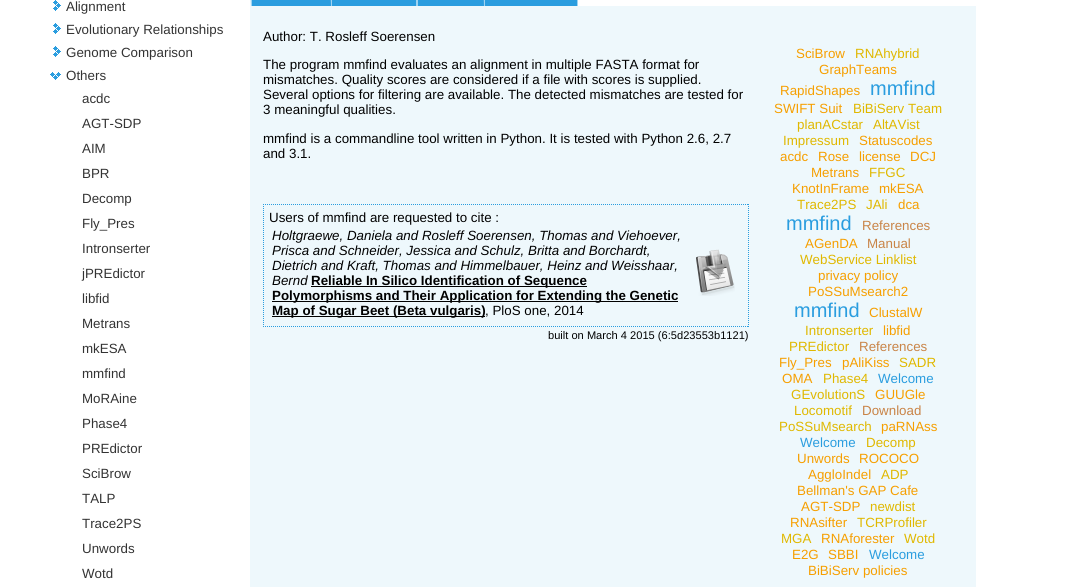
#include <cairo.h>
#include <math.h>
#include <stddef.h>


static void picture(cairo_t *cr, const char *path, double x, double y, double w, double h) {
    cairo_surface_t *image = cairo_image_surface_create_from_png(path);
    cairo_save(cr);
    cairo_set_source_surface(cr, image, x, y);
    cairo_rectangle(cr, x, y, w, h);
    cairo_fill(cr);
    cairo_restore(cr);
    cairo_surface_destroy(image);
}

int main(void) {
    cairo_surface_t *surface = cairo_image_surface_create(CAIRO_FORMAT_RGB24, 1068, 587);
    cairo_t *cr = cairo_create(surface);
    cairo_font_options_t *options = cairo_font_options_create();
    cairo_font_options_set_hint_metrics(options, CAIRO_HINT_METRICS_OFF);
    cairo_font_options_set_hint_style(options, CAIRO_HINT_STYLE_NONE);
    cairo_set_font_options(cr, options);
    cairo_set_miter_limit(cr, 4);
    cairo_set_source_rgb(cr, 1, 1, 1);
    cairo_paint(cr);
    picture(cr, "img1.png", 53, 0, 8, 11);
    cairo_select_font_face(cr, "Liberation Sans", CAIRO_FONT_SLANT_NORMAL, CAIRO_FONT_WEIGHT_NORMAL);
    cairo_set_font_size(cr, 13.35);
    cairo_set_source_rgb(cr, 0.2, 0.2, 0.2);
    cairo_move_to(cr, 66, 11);
    cairo_show_text(cr, "Alignment");
    picture(cr, "img2.png", 53, 23, 8, 11);
    cairo_move_to(cr, 66, 34);
    cairo_show_text(cr, "Evolutionary Relationships");
    picture(cr, "img2.png", 53, 46, 8, 11);
    cairo_move_to(cr, 66, 57);
    cairo_show_text(cr, "Genome Comparison");
    picture(cr, "img3.png", 50, 72, 11, 8);
    cairo_move_to(cr, 66, 80);
    cairo_show_text(cr, "Others");
    cairo_move_to(cr, 82, 103);
    cairo_show_text(cr, "acdc");
    cairo_move_to(cr, 82, 128);
    cairo_show_text(cr, "AGT-SDP");
    cairo_move_to(cr, 82, 153);
    cairo_show_text(cr, "AIM");
    cairo_move_to(cr, 82, 178);
    cairo_show_text(cr, "BPR");
    cairo_move_to(cr, 82, 203);
    cairo_show_text(cr, "Decomp");
    cairo_move_to(cr, 82, 228);
    cairo_show_text(cr, "Fly_Pres");
    cairo_move_to(cr, 82, 253);
    cairo_show_text(cr, "Intronserter");
    cairo_move_to(cr, 82, 278);
    cairo_show_text(cr, "jPREdictor");
    cairo_move_to(cr, 82, 303);
    cairo_show_text(cr, "libfid");
    cairo_move_to(cr, 82, 328);
    cairo_show_text(cr, "Metrans");
    cairo_move_to(cr, 82, 353);
    cairo_show_text(cr, "mkESA");
    cairo_move_to(cr, 82, 378);
    cairo_show_text(cr, "mmfind");
    cairo_move_to(cr, 82, 403);
    cairo_show_text(cr, "MoRAine");
    cairo_move_to(cr, 82, 428);
    cairo_show_text(cr, "Phase4");
    cairo_move_to(cr, 82, 453);
    cairo_show_text(cr, "PREdictor");
    cairo_move_to(cr, 82, 478);
    cairo_show_text(cr, "SciBrow");
    cairo_move_to(cr, 82, 503);
    cairo_show_text(cr, "TALP");
    cairo_move_to(cr, 82, 528);
    cairo_show_text(cr, "Trace2PS");
    cairo_move_to(cr, 82, 553);
    cairo_show_text(cr, "Unwords");
    cairo_move_to(cr, 82, 578);
    cairo_show_text(cr, "Wotd");
    cairo_set_source_rgb(cr, 0.933, 0.969, 0.988);
    cairo_rectangle(cr, 250, 0, 726, 587);
    cairo_fill(cr);
    cairo_set_source_rgb(cr, 1, 1, 1);
    cairo_rectangle(cr, 578, 0, 398, 6);
    cairo_fill(cr);
    cairo_set_source_rgb(cr, 0.165, 0.616, 0.875);
    cairo_rectangle(cr, 251, 0, 81, 6);
    cairo_fill(cr);
    cairo_set_source_rgb(cr, 0.624, 0.827, 0.945);
    cairo_set_fill_rule(cr, CAIRO_FILL_RULE_EVEN_ODD);
    cairo_new_path(cr);
    cairo_move_to(cr, 261, -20);
    cairo_line_to(cr, 322, -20);
    cairo_curve_to(cr, 328, -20, 332, -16, 332, -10);
    cairo_line_to(cr, 332, 6);
    cairo_line_to(cr, 251, 6);
    cairo_curve_to(cr, 251, -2, 248, -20, 261, -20);
    cairo_close_path(cr);
    cairo_move_to(cr, 261, -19);
    cairo_line_to(cr, 322, -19);
    cairo_curve_to(cr, 327, -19, 331, -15, 331, -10);
    cairo_line_to(cr, 331, 6);
    cairo_line_to(cr, 252, 6);
    cairo_line_to(cr, 252, -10);
    cairo_curve_to(cr, 252, -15, 256, -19, 261, -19);
    cairo_close_path(cr);
    cairo_fill(cr);
    cairo_set_source_rgb(cr, 0.165, 0.616, 0.875);
    cairo_rectangle(cr, 331, 0, 154, 6);
    cairo_fill(cr);
    cairo_set_source_rgb(cr, 0.624, 0.827, 0.945);
    cairo_new_path(cr);
    cairo_move_to(cr, 341, -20);
    cairo_line_to(cr, 407, -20);
    cairo_curve_to(cr, 413, -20, 417, -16, 417, -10);
    cairo_line_to(cr, 417, 6);
    cairo_line_to(cr, 331, 6);
    cairo_curve_to(cr, 331, -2, 328, -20, 341, -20);
    cairo_close_path(cr);
    cairo_move_to(cr, 341, -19);
    cairo_line_to(cr, 407, -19);
    cairo_curve_to(cr, 412, -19, 416, -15, 416, -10);
    cairo_line_to(cr, 416, 6);
    cairo_line_to(cr, 332, 6);
    cairo_line_to(cr, 332, -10);
    cairo_curve_to(cr, 332, -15, 336, -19, 341, -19);
    cairo_close_path(cr);
    cairo_fill(cr);
    cairo_new_path(cr);
    cairo_move_to(cr, 427, -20);
    cairo_line_to(cr, 475, -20);
    cairo_curve_to(cr, 481, -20, 485, -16, 485, -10);
    cairo_line_to(cr, 485, 6);
    cairo_line_to(cr, 417, 6);
    cairo_curve_to(cr, 417, -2, 414, -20, 427, -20);
    cairo_close_path(cr);
    cairo_move_to(cr, 427, -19);
    cairo_line_to(cr, 475, -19);
    cairo_curve_to(cr, 480, -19, 484, -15, 484, -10);
    cairo_line_to(cr, 484, 6);
    cairo_line_to(cr, 418, 6);
    cairo_line_to(cr, 418, -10);
    cairo_curve_to(cr, 418, -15, 422, -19, 427, -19);
    cairo_close_path(cr);
    cairo_fill(cr);
    cairo_set_source_rgb(cr, 0.165, 0.616, 0.875);
    cairo_rectangle(cr, 484, 0, 94, 6);
    cairo_fill(cr);
    cairo_set_source_rgb(cr, 0.624, 0.827, 0.945);
    cairo_new_path(cr);
    cairo_move_to(cr, 494, -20);
    cairo_line_to(cr, 568, -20);
    cairo_curve_to(cr, 574, -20, 578, -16, 578, -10);
    cairo_line_to(cr, 578, 6);
    cairo_line_to(cr, 484, 6);
    cairo_curve_to(cr, 484, -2, 481, -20, 494, -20);
    cairo_close_path(cr);
    cairo_move_to(cr, 494, -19);
    cairo_line_to(cr, 568, -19);
    cairo_curve_to(cr, 573, -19, 577, -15, 577, -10);
    cairo_line_to(cr, 577, 6);
    cairo_line_to(cr, 485, 6);
    cairo_line_to(cr, 485, -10);
    cairo_curve_to(cr, 485, -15, 489, -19, 494, -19);
    cairo_close_path(cr);
    cairo_fill(cr);
    cairo_set_source_rgb(cr, 0, 0, 0);
    cairo_move_to(cr, 263, 41);
    cairo_show_text(cr, "Author: T. Rosleff Soerensen");
    cairo_move_to(cr, 263, 69);
    cairo_show_text(cr, "The program mmfind evaluates an alignment in multiple FASTA format for");
    cairo_move_to(cr, 263, 84);
    cairo_show_text(cr, "mismatches. Quality scores are considered if a file with scores is supplied.");
    cairo_move_to(cr, 263, 99);
    cairo_show_text(cr, "Several options for filtering are available. The detected mismatches are tested for");
    cairo_move_to(cr, 263, 114);
    cairo_show_text(cr, "3 meaningful qualities.");
    cairo_move_to(cr, 263, 143);
    cairo_show_text(cr, "mmfind is a commandline tool written in Python. It is tested with Python 2.6, 2.7");
    cairo_move_to(cr, 263, 158);
    cairo_show_text(cr, "and 3.1.");
    cairo_new_path(cr);
    cairo_move_to(cr, 263, 204.5);
    cairo_line_to(cr, 749, 204.5);
    cairo_set_source_rgb(cr, 0.165, 0.616, 0.875);
    cairo_set_line_width(cr, 1);
    cairo_set_dash(cr, (double[]){1, 1}, 2, 0);
    cairo_stroke(cr);
    cairo_new_path(cr);
    cairo_move_to(cr, 748.5, 204);
    cairo_line_to(cr, 748.5, 327);
    cairo_stroke(cr);
    cairo_new_path(cr);
    cairo_move_to(cr, 263, 326.5);
    cairo_line_to(cr, 749, 326.5);
    cairo_stroke(cr);
    cairo_new_path(cr);
    cairo_move_to(cr, 263.5, 204);
    cairo_line_to(cr, 263.5, 327);
    cairo_stroke(cr);
    cairo_set_source_rgb(cr, 0, 0, 0);
    cairo_move_to(cr, 269, 222);
    cairo_show_text(cr, "Users of mmfind are requested to cite :");
    cairo_select_font_face(cr, "Liberation Sans", CAIRO_FONT_SLANT_ITALIC, CAIRO_FONT_WEIGHT_NORMAL);
    cairo_move_to(cr, 272, 240);
    cairo_show_text(cr, "Holtgraewe, Daniela and Rosleff Soerensen, Thomas and Viehoever,");
    cairo_move_to(cr, 272, 255);
    cairo_show_text(cr, "Prisca and Schneider, Jessica and Schulz, Britta and Borchardt,");
    cairo_move_to(cr, 272, 270);
    cairo_show_text(cr, "Dietrich and Kraft, Thomas and Himmelbauer, Heinz and Weisshaar,");
    cairo_move_to(cr, 272, 285);
    cairo_show_text(cr, "Bernd");
    cairo_rectangle(cr, 311, 286, 276, 1);
    cairo_fill(cr);
    cairo_select_font_face(cr, "Liberation Sans", CAIRO_FONT_SLANT_NORMAL, CAIRO_FONT_WEIGHT_BOLD);
    cairo_move_to(cr, 311, 285);
    cairo_show_text(cr, "Reliable In Silico Identification of Sequence");
    cairo_rectangle(cr, 272, 301, 406, 1);
    cairo_fill(cr);
    cairo_move_to(cr, 272, 300);
    cairo_show_text(cr, "Polymorphisms and Their Application for Extending the Genetic");
    cairo_rectangle(cr, 272, 316, 213, 1);
    cairo_fill(cr);
    cairo_move_to(cr, 272, 315);
    cairo_show_text(cr, "Map of Sugar Beet (Beta vulgaris)");
    cairo_select_font_face(cr, "Liberation Sans", CAIRO_FONT_SLANT_NORMAL, CAIRO_FONT_WEIGHT_NORMAL);
    cairo_move_to(cr, 485, 315);
    cairo_show_text(cr, ", PloS one, 2014");
    picture(cr, "img4.png", 696, 249, 39, 47);
    cairo_set_font_size(cr, 11.1);
    cairo_move_to(cr, 548, 339);
    cairo_show_text(cr, "built on March 4 2015 (6:5d23553b1121)");
    cairo_set_font_size(cr, 13.35);
    cairo_set_source_rgb(cr, 0.961, 0.624, 0);
    cairo_move_to(cr, 796, 58);
    cairo_show_text(cr, "SciBrow");
    cairo_set_source_rgb(cr, 0.878, 0.722, 0);
    cairo_move_to(cr, 855, 58);
    cairo_show_text(cr, "RNAhybrid");
    cairo_set_source_rgb(cr, 0.961, 0.624, 0);
    cairo_move_to(cr, 819, 74);
    cairo_show_text(cr, "GraphTeams");
    cairo_move_to(cr, 780, 95);
    cairo_show_text(cr, "RapidShapes");
    cairo_set_font_size(cr, 20);
    cairo_set_source_rgb(cr, 0.165, 0.616, 0.875);
    cairo_move_to(cr, 870, 95);
    cairo_show_text(cr, "mmfind");
    cairo_set_font_size(cr, 13.35);
    cairo_set_source_rgb(cr, 0.961, 0.624, 0);
    cairo_move_to(cr, 774, 113);
    cairo_show_text(cr, "SWIFT Suit");
    cairo_set_source_rgb(cr, 0.878, 0.722, 0);
    cairo_move_to(cr, 853, 113);
    cairo_show_text(cr, "BiBiServ Team");
    cairo_move_to(cr, 797, 129);
    cairo_show_text(cr, "planACstar");
    cairo_move_to(cr, 873, 129);
    cairo_show_text(cr, "AltAVist");
    cairo_move_to(cr, 783, 145);
    cairo_show_text(cr, "Impressum");
    cairo_set_source_rgb(cr, 0.961, 0.624, 0);
    cairo_move_to(cr, 859, 145);
    cairo_show_text(cr, "Statuscodes");
    cairo_move_to(cr, 780, 161);
    cairo_show_text(cr, "acdc");
    cairo_move_to(cr, 818, 161);
    cairo_show_text(cr, "Rose");
    cairo_move_to(cr, 859, 161);
    cairo_show_text(cr, "license");
    cairo_move_to(cr, 910, 161);
    cairo_show_text(cr, "DCJ");
    cairo_move_to(cr, 811, 177);
    cairo_show_text(cr, "Metrans");
    cairo_set_source_rgb(cr, 0.878, 0.722, 0);
    cairo_move_to(cr, 869, 177);
    cairo_show_text(cr, "FFGC");
    cairo_set_source_rgb(cr, 0.961, 0.624, 0);
    cairo_move_to(cr, 792, 193);
    cairo_show_text(cr, "KnotInFrame");
    cairo_move_to(cr, 879, 193);
    cairo_show_text(cr, "mkESA");
    cairo_set_source_rgb(cr, 0.878, 0.722, 0);
    cairo_move_to(cr, 797, 209);
    cairo_show_text(cr, "Trace2PS");
    cairo_move_to(cr, 866, 209);
    cairo_show_text(cr, "JAli");
    cairo_set_source_rgb(cr, 0.961, 0.624, 0);
    cairo_move_to(cr, 898, 209);
    cairo_show_text(cr, "dca");
    cairo_set_font_size(cr, 20);
    cairo_set_source_rgb(cr, 0.165, 0.616, 0.875);
    cairo_move_to(cr, 786, 230);
    cairo_show_text(cr, "mmfind");
    cairo_set_font_size(cr, 13.35);
    cairo_set_source_rgb(cr, 0.788, 0.518, 0.278);
    cairo_move_to(cr, 862, 230);
    cairo_show_text(cr, "References");
    cairo_set_source_rgb(cr, 0.961, 0.624, 0);
    cairo_move_to(cr, 805, 248);
    cairo_show_text(cr, "AGenDA");
    cairo_set_source_rgb(cr, 0.788, 0.518, 0.278);
    cairo_move_to(cr, 867, 248);
    cairo_show_text(cr, "Manual");
    cairo_set_source_rgb(cr, 0.878, 0.722, 0);
    cairo_move_to(cr, 800, 264);
    cairo_show_text(cr, "WebService Linklist");
    cairo_set_source_rgb(cr, 0.961, 0.624, 0);
    cairo_move_to(cr, 818, 280);
    cairo_show_text(cr, "privacy policy");
    cairo_move_to(cr, 808, 296);
    cairo_show_text(cr, "PoSSuMsearch2");
    cairo_set_font_size(cr, 20);
    cairo_set_source_rgb(cr, 0.165, 0.616, 0.875);
    cairo_move_to(cr, 794, 317);
    cairo_show_text(cr, "mmfind");
    cairo_set_font_size(cr, 13.35);
    cairo_set_source_rgb(cr, 0.961, 0.624, 0);
    cairo_move_to(cr, 869, 317);
    cairo_show_text(cr, "ClustalW");
    cairo_set_source_rgb(cr, 0.878, 0.722, 0);
    cairo_move_to(cr, 805, 335);
    cairo_show_text(cr, "Intronserter");
    cairo_set_source_rgb(cr, 0.961, 0.624, 0);
    cairo_move_to(cr, 883, 335);
    cairo_show_text(cr, "libfid");
    cairo_set_source_rgb(cr, 0.878, 0.722, 0);
    cairo_move_to(cr, 789, 351);
    cairo_show_text(cr, "PREdictor");
    cairo_set_source_rgb(cr, 0.788, 0.518, 0.278);
    cairo_move_to(cr, 859, 351);
    cairo_show_text(cr, "References");
    cairo_set_source_rgb(cr, 0.961, 0.624, 0);
    cairo_move_to(cr, 779, 367);
    cairo_show_text(cr, "Fly_Pres");
    cairo_move_to(cr, 842, 367);
    cairo_show_text(cr, "pAliKiss");
    cairo_set_source_rgb(cr, 0.878, 0.722, 0);
    cairo_move_to(cr, 899, 367);
    cairo_show_text(cr, "SADR");
    cairo_set_source_rgb(cr, 0.961, 0.624, 0);
    cairo_move_to(cr, 782, 383);
    cairo_show_text(cr, "OMA");
    cairo_set_source_rgb(cr, 0.878, 0.722, 0);
    cairo_move_to(cr, 823, 383);
    cairo_show_text(cr, "Phase4");
    cairo_set_source_rgb(cr, 0.165, 0.616, 0.875);
    cairo_move_to(cr, 878, 383);
    cairo_show_text(cr, "Welcome");
    cairo_set_source_rgb(cr, 0.878, 0.722, 0);
    cairo_move_to(cr, 791, 399);
    cairo_show_text(cr, "GEvolutionS");
    cairo_set_source_rgb(cr, 0.961, 0.624, 0);
    cairo_move_to(cr, 875, 399);
    cairo_show_text(cr, "GUUGle");
    cairo_set_source_rgb(cr, 0.878, 0.722, 0);
    cairo_move_to(cr, 794, 415);
    cairo_show_text(cr, "Locomotif");
    cairo_set_source_rgb(cr, 0.788, 0.518, 0.278);
    cairo_move_to(cr, 862, 415);
    cairo_show_text(cr, "Download");
    cairo_set_source_rgb(cr, 0.878, 0.722, 0);
    cairo_move_to(cr, 779, 431);
    cairo_show_text(cr, "PoSSuMsearch");
    cairo_set_source_rgb(cr, 0.961, 0.624, 0);
    cairo_move_to(cr, 881, 431);
    cairo_show_text(cr, "paRNAss");
    cairo_set_source_rgb(cr, 0.165, 0.616, 0.875);
    cairo_move_to(cr, 800, 447);
    cairo_show_text(cr, "Welcome");
    cairo_set_source_rgb(cr, 0.878, 0.722, 0);
    cairo_move_to(cr, 866, 447);
    cairo_show_text(cr, "Decomp");
    cairo_set_source_rgb(cr, 0.961, 0.624, 0);
    cairo_move_to(cr, 797, 463);
    cairo_show_text(cr, "Unwords");
    cairo_move_to(cr, 859, 463);
    cairo_show_text(cr, "ROCOCO");
    cairo_move_to(cr, 808, 479);
    cairo_show_text(cr, "AggloIndel");
    cairo_set_source_rgb(cr, 0.878, 0.722, 0);
    cairo_move_to(cr, 881, 479);
    cairo_show_text(cr, "ADP");
    cairo_set_source_rgb(cr, 0.961, 0.624, 0);
    cairo_move_to(cr, 797, 495);
    cairo_show_text(cr, "Bellman's GAP Cafe");
    cairo_move_to(cr, 801, 511);
    cairo_show_text(cr, "AGT-SDP");
    cairo_set_source_rgb(cr, 0.878, 0.722, 0);
    cairo_move_to(cr, 870, 511);
    cairo_show_text(cr, "newdist");
    cairo_set_source_rgb(cr, 0.961, 0.624, 0);
    cairo_move_to(cr, 790, 527);
    cairo_show_text(cr, "RNAsifter");
    cairo_set_source_rgb(cr, 0.878, 0.722, 0);
    cairo_move_to(cr, 857, 527);
    cairo_show_text(cr, "TCRProfiler");
    cairo_move_to(cr, 781, 543);
    cairo_show_text(cr, "MGA");
    cairo_set_source_rgb(cr, 0.961, 0.624, 0);
    cairo_move_to(cr, 821, 543);
    cairo_show_text(cr, "RNAforester");
    cairo_set_source_rgb(cr, 0.878, 0.722, 0);
    cairo_move_to(cr, 904, 543);
    cairo_show_text(cr, "Wotd");
    cairo_set_source_rgb(cr, 0.961, 0.624, 0);
    cairo_move_to(cr, 792, 559);
    cairo_show_text(cr, "E2G");
    cairo_move_to(cr, 828, 559);
    cairo_show_text(cr, "SBBI");
    cairo_set_source_rgb(cr, 0.165, 0.616, 0.875);
    cairo_move_to(cr, 869, 559);
    cairo_show_text(cr, "Welcome");
    cairo_set_source_rgb(cr, 0.961, 0.624, 0);
    cairo_move_to(cr, 808, 575);
    cairo_show_text(cr, "BiBiServ policies");
    cairo_surface_write_to_png(surface, "page.png");
    cairo_font_options_destroy(options);
    cairo_destroy(cr);
    cairo_surface_destroy(surface);
    return 0;
}
